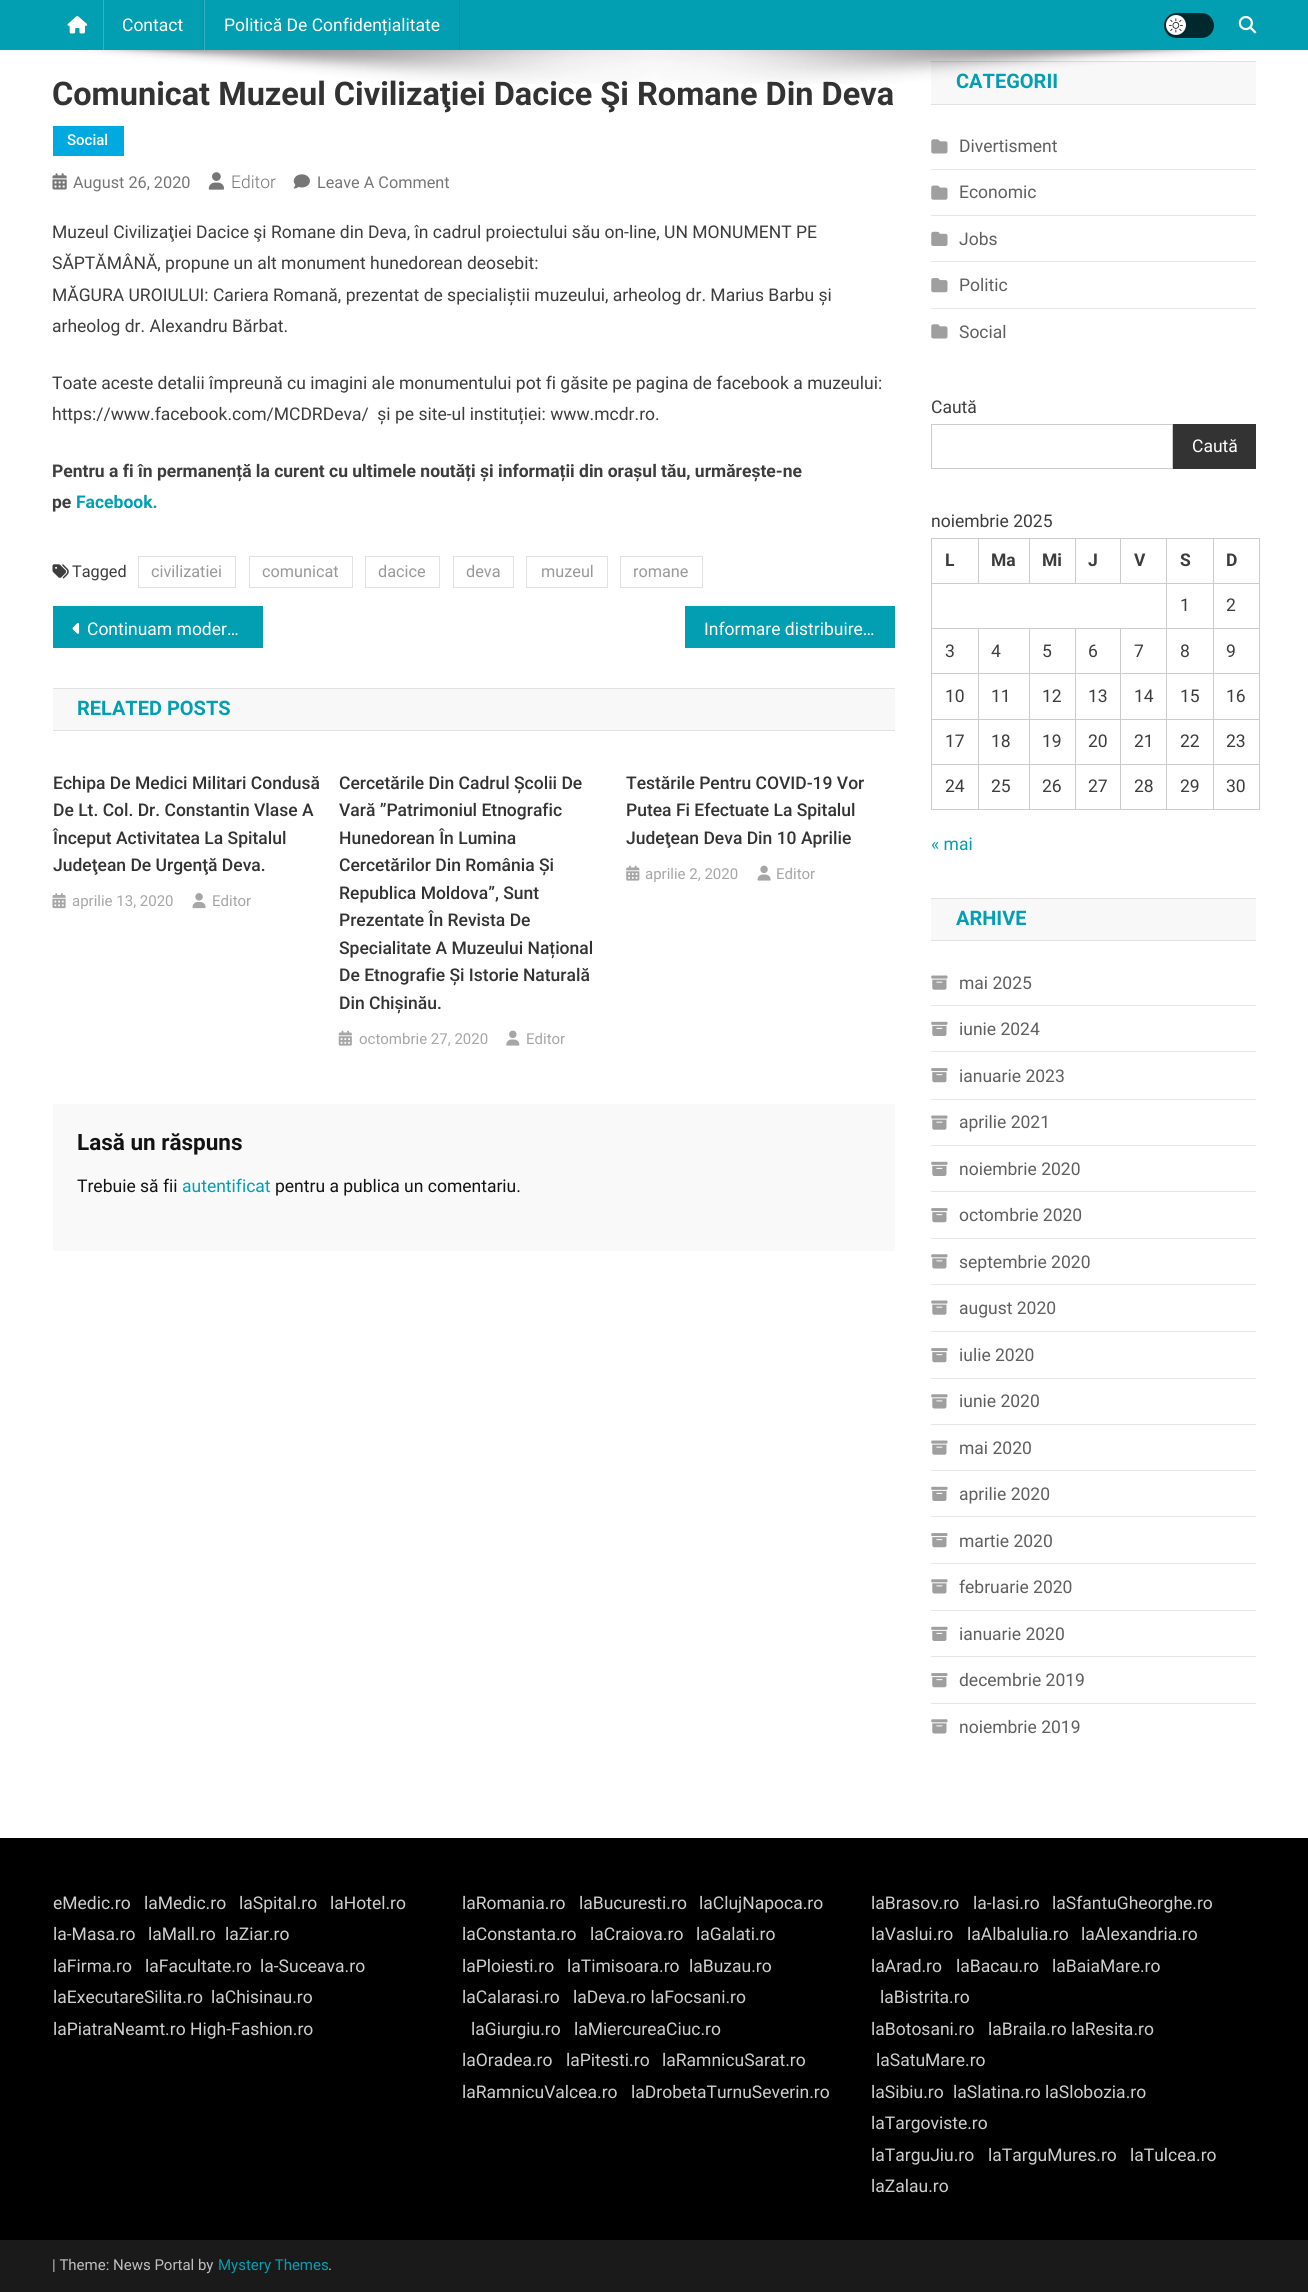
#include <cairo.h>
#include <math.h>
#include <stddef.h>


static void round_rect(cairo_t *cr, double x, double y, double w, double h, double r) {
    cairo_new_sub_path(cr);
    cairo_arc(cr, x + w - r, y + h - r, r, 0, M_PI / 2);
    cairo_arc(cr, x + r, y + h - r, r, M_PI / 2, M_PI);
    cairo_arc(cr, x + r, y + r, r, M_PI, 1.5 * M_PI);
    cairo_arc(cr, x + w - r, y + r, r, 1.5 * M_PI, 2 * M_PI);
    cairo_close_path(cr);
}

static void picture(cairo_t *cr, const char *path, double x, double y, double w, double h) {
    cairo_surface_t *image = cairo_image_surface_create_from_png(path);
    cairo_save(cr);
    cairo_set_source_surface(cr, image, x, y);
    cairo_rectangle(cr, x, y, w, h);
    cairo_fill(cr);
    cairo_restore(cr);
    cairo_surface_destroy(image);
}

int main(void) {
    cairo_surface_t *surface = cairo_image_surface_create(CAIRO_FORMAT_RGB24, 1308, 2292);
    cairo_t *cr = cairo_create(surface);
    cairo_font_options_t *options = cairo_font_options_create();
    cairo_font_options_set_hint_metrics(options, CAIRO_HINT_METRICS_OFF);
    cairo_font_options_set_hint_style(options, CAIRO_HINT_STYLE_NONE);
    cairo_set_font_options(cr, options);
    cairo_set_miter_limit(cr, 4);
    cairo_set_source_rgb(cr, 1, 1, 1);
    cairo_paint(cr);
    cairo_set_source_rgb(cr, 0.008, 0.624, 0.698);
    cairo_rectangle(cr, 0, 0, 1308, 50);
    cairo_fill(cr);
    picture(cr, "img1.png", 67, 16, 21, 18);
    cairo_set_source_rgb(cr, 0.008, 0.573, 0.643);
    cairo_rectangle(cr, 203, 0, 1, 50);
    cairo_fill(cr);
    cairo_set_source_rgb(cr, 0.208, 0.698, 0.757);
    cairo_rectangle(cr, 103, 0, 1, 50);
    cairo_fill(cr);
    cairo_select_font_face(cr, "Roboto", CAIRO_FONT_SLANT_NORMAL, CAIRO_FONT_WEIGHT_NORMAL);
    cairo_set_font_size(cr, 17.5);
    cairo_set_source_rgb(cr, 1, 1, 1);
    cairo_move_to(cr, 122, 31);
    cairo_show_text(cr, "Contact");
    cairo_set_source_rgb(cr, 0.008, 0.573, 0.643);
    cairo_rectangle(cr, 459, 0, 1, 50);
    cairo_fill(cr);
    cairo_set_source_rgb(cr, 0.208, 0.698, 0.757);
    cairo_rectangle(cr, 204, 0, 1, 50);
    cairo_fill(cr);
    cairo_set_source_rgb(cr, 1, 1, 1);
    cairo_move_to(cr, 224, 31);
    cairo_show_text(cr, "Politică De Confidențialitate");
    cairo_set_source_rgb(cr, 0.004, 0.157, 0.176);
    round_rect(cr, 1164, 13, 50, 25, 12.5);
    cairo_fill(cr);
    cairo_set_source_rgb(cr, 1, 1, 1);
    cairo_arc(cr, 1176, 25, 10, 0, 2 * M_PI);
    cairo_fill(cr);
    picture(cr, "img2.png", 1169, 18, 14, 15);
    picture(cr, "img3.png", 1238, 15, 19, 19);
    cairo_select_font_face(cr, "Roboto", CAIRO_FONT_SLANT_NORMAL, CAIRO_FONT_WEIGHT_BOLD);
    cairo_set_font_size(cr, 32.5);
    cairo_set_source_rgb(cr, 0.2, 0.2, 0.2);
    cairo_move_to(cr, 52, 105);
    cairo_show_text(cr, "Comunicat Muzeul Civilizaţiei Dacice Şi Romane Din Deva");
    cairo_set_source_rgb(cr, 0.969, 0.969, 0.969);
    cairo_rectangle(cr, 931, 62, 325, 42);
    cairo_fill(cr);
    cairo_set_source_rgb(cr, 0.882, 0.882, 0.882);
    cairo_rectangle(cr, 931, 61, 325, 1);
    cairo_fill(cr);
    cairo_set_font_size(cr, 20);
    cairo_set_source_rgb(cr, 0.008, 0.624, 0.698);
    cairo_move_to(cr, 956, 88);
    cairo_show_text(cr, "CATEGORII");
    picture(cr, "img4.png", 76, 50, 1156, 34);
    cairo_set_source_rgb(cr, 0, 0.663, 0.878);
    cairo_rectangle(cr, 53, 126, 71, 30);
    cairo_fill(cr);
    cairo_select_font_face(cr, "Roboto Medium", CAIRO_FONT_SLANT_NORMAL, CAIRO_FONT_WEIGHT_NORMAL);
    cairo_set_font_size(cr, 15);
    cairo_set_source_rgb(cr, 1, 1, 1);
    cairo_move_to(cr, 67, 145);
    cairo_show_text(cr, "Social");
    picture(cr, "img5.png", 52, 173, 15, 17);
    cairo_select_font_face(cr, "Roboto", CAIRO_FONT_SLANT_NORMAL, CAIRO_FONT_WEIGHT_NORMAL);
    cairo_set_font_size(cr, 16.25);
    cairo_set_source_rgb(cr, 0.463, 0.463, 0.463);
    cairo_move_to(cr, 73, 188);
    cairo_show_text(cr, "August 26, 2020");
    picture(cr, "img6.png", 208, 172, 16, 18);
    cairo_select_font_face(cr, "Roboto Light", CAIRO_FONT_SLANT_NORMAL, CAIRO_FONT_WEIGHT_NORMAL);
    cairo_set_font_size(cr, 17.5);
    cairo_move_to(cr, 231, 188);
    cairo_show_text(cr, "Editor");
    picture(cr, "img7.png", 293, 174, 17, 15);
    cairo_select_font_face(cr, "Roboto", CAIRO_FONT_SLANT_NORMAL, CAIRO_FONT_WEIGHT_NORMAL);
    cairo_set_font_size(cr, 16.25);
    cairo_move_to(cr, 317, 188);
    cairo_show_text(cr, "Leave A Comment");
    cairo_set_font_size(cr, 17.5);
    cairo_set_source_rgb(cr, 0.239, 0.239, 0.239);
    cairo_move_to(cr, 52, 238);
    cairo_show_text(cr, "Muzeul Civilizaţiei Dacice şi Romane din Deva, în cadrul proiectului său on-line, UN MONUMENT PE");
    cairo_move_to(cr, 52, 269);
    cairo_show_text(cr, "SĂPTĂMÂNĂ, propune un alt monument hunedorean deosebit:");
    cairo_move_to(cr, 52, 301);
    cairo_show_text(cr, "MĂGURA UROIULUI: Cariera Romană, prezentat de specialiștii muzeului, arheolog dr. Marius Barbu și");
    cairo_move_to(cr, 52, 332);
    cairo_show_text(cr, "arheolog dr. Alexandru Bărbat.");
    cairo_move_to(cr, 52, 389);
    cairo_show_text(cr, "Toate aceste detalii împreună cu imagini ale monumentului pot fi găsite pe pagina de facebook a muzeului:");
    cairo_move_to(cr, 52, 420);
    cairo_show_text(cr, "https://www.facebook.com/MCDRDeva/  și pe site-ul instituției: www.mcdr.ro.");
    cairo_select_font_face(cr, "Roboto", CAIRO_FONT_SLANT_NORMAL, CAIRO_FONT_WEIGHT_BOLD);
    cairo_move_to(cr, 52, 477);
    cairo_show_text(cr, "Pentru a fi în permanență la curent cu ultimele noutăți și informații din orașul tău, urmărește-ne");
    cairo_move_to(cr, 52, 508);
    cairo_show_text(cr, "pe");
    cairo_set_source_rgb(cr, 0.008, 0.624, 0.698);
    cairo_move_to(cr, 76, 508);
    cairo_show_text(cr, "Facebook.");
    picture(cr, "img8.png", 52, 564, 17, 15);
    cairo_select_font_face(cr, "Roboto", CAIRO_FONT_SLANT_NORMAL, CAIRO_FONT_WEIGHT_NORMAL);
    cairo_set_font_size(cr, 16.25);
    cairo_set_source_rgb(cr, 0.239, 0.239, 0.239);
    cairo_move_to(cr, 72, 577);
    cairo_show_text(cr, "Tagged");
    cairo_rectangle(cr, 138.5, 556.5, 97, 31);
    cairo_set_source_rgb(cr, 0.882, 0.882, 0.882);
    cairo_set_line_width(cr, 1);
    cairo_stroke(cr);
    cairo_set_source_rgb(cr, 0.6, 0.6, 0.6);
    cairo_move_to(cr, 151, 577);
    cairo_show_text(cr, "civilizatiei");
    cairo_rectangle(cr, 249.5, 556.5, 103, 31);
    cairo_set_source_rgb(cr, 0.882, 0.882, 0.882);
    cairo_stroke(cr);
    cairo_set_source_rgb(cr, 0.6, 0.6, 0.6);
    cairo_move_to(cr, 262, 577);
    cairo_show_text(cr, "comunicat");
    cairo_rectangle(cr, 365.5, 556.5, 74, 31);
    cairo_set_source_rgb(cr, 0.882, 0.882, 0.882);
    cairo_stroke(cr);
    cairo_set_source_rgb(cr, 0.6, 0.6, 0.6);
    cairo_move_to(cr, 378, 577);
    cairo_show_text(cr, "dacice");
    cairo_rectangle(cr, 453.5, 556.5, 60, 31);
    cairo_set_source_rgb(cr, 0.882, 0.882, 0.882);
    cairo_stroke(cr);
    cairo_set_source_rgb(cr, 0.6, 0.6, 0.6);
    cairo_move_to(cr, 466, 577);
    cairo_show_text(cr, "deva");
    cairo_rectangle(cr, 526.5, 556.5, 81, 31);
    cairo_set_source_rgb(cr, 0.882, 0.882, 0.882);
    cairo_stroke(cr);
    cairo_set_source_rgb(cr, 0.6, 0.6, 0.6);
    cairo_move_to(cr, 541, 577);
    cairo_show_text(cr, "muzeul");
    cairo_rectangle(cr, 620.5, 556.5, 82, 31);
    cairo_set_source_rgb(cr, 0.882, 0.882, 0.882);
    cairo_stroke(cr);
    cairo_set_source_rgb(cr, 0.6, 0.6, 0.6);
    cairo_move_to(cr, 633, 577);
    cairo_show_text(cr, "romane");
    cairo_set_source_rgb(cr, 0.008, 0.624, 0.698);
    cairo_rectangle(cr, 53, 606, 210, 42);
    cairo_fill(cr);
    picture(cr, "img9.png", 72, 623, 8, 11);
    cairo_set_font_size(cr, 17.5);
    cairo_set_source_rgb(cr, 1, 1, 1);
    cairo_move_to(cr, 87, 635);
    cairo_show_text(cr, "Continuam moder…");
    cairo_set_source_rgb(cr, 0.008, 0.624, 0.698);
    cairo_rectangle(cr, 685, 606, 210, 42);
    cairo_fill(cr);
    cairo_set_source_rgb(cr, 1, 1, 1);
    cairo_move_to(cr, 704, 635);
    cairo_show_text(cr, "Informare distribuire…");
    cairo_set_source_rgb(cr, 0.969, 0.969, 0.969);
    cairo_rectangle(cr, 53, 689, 842, 41);
    cairo_fill(cr);
    cairo_set_source_rgb(cr, 0.882, 0.882, 0.882);
    cairo_rectangle(cr, 53, 688, 842, 1);
    cairo_fill(cr);
    cairo_rectangle(cr, 53, 730, 842, 1);
    cairo_fill(cr);
    cairo_select_font_face(cr, "Roboto", CAIRO_FONT_SLANT_NORMAL, CAIRO_FONT_WEIGHT_BOLD);
    cairo_set_font_size(cr, 20);
    cairo_set_source_rgb(cr, 0.008, 0.624, 0.698);
    cairo_move_to(cr, 77, 715);
    cairo_show_text(cr, "RELATED POSTS");
    cairo_select_font_face(cr, "Roboto Medium", CAIRO_FONT_SLANT_NORMAL, CAIRO_FONT_WEIGHT_NORMAL);
    cairo_set_font_size(cr, 17.5);
    cairo_set_source_rgb(cr, 0.2, 0.2, 0.2);
    cairo_move_to(cr, 53, 789);
    cairo_show_text(cr, "Echipa De Medici Militari Condusă");
    cairo_move_to(cr, 53, 816);
    cairo_show_text(cr, "De Lt. Col. Dr. Constantin Vlase A");
    cairo_move_to(cr, 53, 844);
    cairo_show_text(cr, "Început Activitatea La Spitalul");
    cairo_move_to(cr, 53, 871);
    cairo_show_text(cr, "Judeţean De Urgenţă Deva.");
    picture(cr, "img10.png", 52, 893, 14, 16);
    cairo_select_font_face(cr, "Roboto", CAIRO_FONT_SLANT_NORMAL, CAIRO_FONT_WEIGHT_NORMAL);
    cairo_set_font_size(cr, 15);
    cairo_set_source_rgb(cr, 0.651, 0.651, 0.651);
    cairo_move_to(cr, 72, 906);
    cairo_show_text(cr, "aprilie 13, 2020");
    picture(cr, "img11.png", 192, 893, 14, 16);
    cairo_move_to(cr, 212, 906);
    cairo_show_text(cr, "Editor");
    cairo_select_font_face(cr, "Roboto Medium", CAIRO_FONT_SLANT_NORMAL, CAIRO_FONT_WEIGHT_NORMAL);
    cairo_set_font_size(cr, 17.5);
    cairo_set_source_rgb(cr, 0.2, 0.2, 0.2);
    cairo_move_to(cr, 339, 789);
    cairo_show_text(cr, "Cercetările Din Cadrul Școlii De");
    cairo_move_to(cr, 339, 816);
    cairo_show_text(cr, "Vară ”Patrimoniul Etnografic");
    cairo_move_to(cr, 339, 844);
    cairo_show_text(cr, "Hunedorean În Lumina");
    cairo_move_to(cr, 339, 871);
    cairo_show_text(cr, "Cercetărilor Din România Și");
    cairo_move_to(cr, 339, 899);
    cairo_show_text(cr, "Republica Moldova”, Sunt");
    cairo_move_to(cr, 339, 926);
    cairo_show_text(cr, "Prezentate În Revista De");
    cairo_move_to(cr, 339, 954);
    cairo_show_text(cr, "Specialitate A Muzeului Național");
    cairo_move_to(cr, 339, 981);
    cairo_show_text(cr, "De Etnografie Și Istorie Naturală");
    cairo_move_to(cr, 339, 1009);
    cairo_show_text(cr, "Din Chișinău.");
    picture(cr, "img12.png", 338, 1030, 14, 16);
    cairo_select_font_face(cr, "Roboto", CAIRO_FONT_SLANT_NORMAL, CAIRO_FONT_WEIGHT_NORMAL);
    cairo_set_font_size(cr, 15);
    cairo_set_source_rgb(cr, 0.651, 0.651, 0.651);
    cairo_move_to(cr, 359, 1044);
    cairo_show_text(cr, "octombrie 27, 2020");
    picture(cr, "img13.png", 506, 1030, 14, 16);
    cairo_move_to(cr, 526, 1044);
    cairo_show_text(cr, "Editor");
    cairo_select_font_face(cr, "Roboto Medium", CAIRO_FONT_SLANT_NORMAL, CAIRO_FONT_WEIGHT_NORMAL);
    cairo_set_font_size(cr, 17.5);
    cairo_set_source_rgb(cr, 0.2, 0.2, 0.2);
    cairo_move_to(cr, 626, 789);
    cairo_show_text(cr, "Testările Pentru COVID-19 Vor");
    cairo_move_to(cr, 626, 816);
    cairo_show_text(cr, "Putea Fi Efectuate La Spitalul");
    cairo_move_to(cr, 626, 844);
    cairo_show_text(cr, "Judeţean Deva Din 10 Aprilie");
    picture(cr, "img14.png", 626, 865, 14, 16);
    cairo_select_font_face(cr, "Roboto", CAIRO_FONT_SLANT_NORMAL, CAIRO_FONT_WEIGHT_NORMAL);
    cairo_set_font_size(cr, 15);
    cairo_set_source_rgb(cr, 0.651, 0.651, 0.651);
    cairo_move_to(cr, 645, 879);
    cairo_show_text(cr, "aprilie 2, 2020");
    picture(cr, "img15.png", 757, 865, 14, 16);
    cairo_move_to(cr, 776, 879);
    cairo_show_text(cr, "Editor");
    cairo_set_source_rgb(cr, 0.976, 0.976, 0.976);
    cairo_rectangle(cr, 53, 1104, 842, 147);
    cairo_fill(cr);
    cairo_select_font_face(cr, "Roboto", CAIRO_FONT_SLANT_NORMAL, CAIRO_FONT_WEIGHT_BOLD);
    cairo_set_font_size(cr, 22.5);
    cairo_set_source_rgb(cr, 0.078, 0.078, 0.078);
    cairo_move_to(cr, 77, 1150);
    cairo_show_text(cr, "Lasă un răspuns");
    cairo_select_font_face(cr, "Roboto", CAIRO_FONT_SLANT_NORMAL, CAIRO_FONT_WEIGHT_NORMAL);
    cairo_set_font_size(cr, 17.5);
    cairo_move_to(cr, 77, 1192);
    cairo_show_text(cr, "Trebuie să fii");
    cairo_set_source_rgb(cr, 0.008, 0.624, 0.698);
    cairo_move_to(cr, 182, 1192);
    cairo_show_text(cr, "autentificat");
    cairo_set_source_rgb(cr, 0.078, 0.078, 0.078);
    cairo_move_to(cr, 275, 1192);
    cairo_show_text(cr, "pentru a publica un comentariu.");
    cairo_set_source_rgb(cr, 0.882, 0.882, 0.882);
    cairo_rectangle(cr, 931, 104, 325, 1);
    cairo_fill(cr);
    cairo_set_source_rgb(cr, 0.902, 0.902, 0.902);
    cairo_rectangle(cr, 931, 169, 325, 1);
    cairo_fill(cr);
    picture(cr, "img16.png", 931, 139, 17, 15);
    cairo_set_source_rgb(cr, 0.373, 0.373, 0.373);
    cairo_move_to(cr, 959, 152);
    cairo_show_text(cr, "Divertisment");
    cairo_set_source_rgb(cr, 0.902, 0.902, 0.902);
    cairo_rectangle(cr, 931, 215, 325, 1);
    cairo_fill(cr);
    picture(cr, "img17.png", 931, 185, 17, 15);
    cairo_set_source_rgb(cr, 0.373, 0.373, 0.373);
    cairo_move_to(cr, 959, 198);
    cairo_show_text(cr, "Economic");
    cairo_set_source_rgb(cr, 0.902, 0.902, 0.902);
    cairo_rectangle(cr, 931, 261, 325, 1);
    cairo_fill(cr);
    picture(cr, "img18.png", 931, 231, 17, 15);
    cairo_set_source_rgb(cr, 0.373, 0.373, 0.373);
    cairo_move_to(cr, 959, 245);
    cairo_show_text(cr, "Jobs");
    cairo_set_source_rgb(cr, 0.902, 0.902, 0.902);
    cairo_rectangle(cr, 931, 308, 325, 1);
    cairo_fill(cr);
    picture(cr, "img19.png", 931, 278, 17, 15);
    cairo_set_source_rgb(cr, 0.373, 0.373, 0.373);
    cairo_move_to(cr, 959, 291);
    cairo_show_text(cr, "Politic");
    picture(cr, "img16.png", 931, 324, 17, 15);
    cairo_move_to(cr, 959, 338);
    cairo_show_text(cr, "Social");
    cairo_set_source_rgb(cr, 0.239, 0.239, 0.239);
    cairo_move_to(cr, 931, 413);
    cairo_show_text(cr, "Caută");
    cairo_rectangle(cr, 931.5, 424.5, 241, 44);
    cairo_set_source_rgb(cr, 0.8, 0.8, 0.8);
    cairo_stroke(cr);
    cairo_set_source_rgb(cr, 0.2, 0.2, 0.2);
    cairo_rectangle(cr, 1173, 424, 83, 45);
    cairo_fill(cr);
    cairo_set_source_rgb(cr, 1, 1, 1);
    cairo_move_to(cr, 1192, 452);
    cairo_show_text(cr, "Caută");
    cairo_set_source_rgb(cr, 0.239, 0.239, 0.239);
    cairo_move_to(cr, 931, 527);
    cairo_show_text(cr, "noiembrie 2025");
    cairo_set_source_rgb(cr, 0.8, 0.8, 0.8);
    cairo_rectangle(cr, 1213, 538, 47, 1);
    cairo_fill(cr);
    cairo_rectangle(cr, 1213, 583, 47, 1);
    cairo_fill(cr);
    cairo_rectangle(cr, 1213, 628, 47, 1);
    cairo_fill(cr);
    cairo_rectangle(cr, 1213, 673, 47, 1);
    cairo_fill(cr);
    cairo_rectangle(cr, 1213, 719, 47, 1);
    cairo_fill(cr);
    cairo_rectangle(cr, 1213, 764, 47, 1);
    cairo_fill(cr);
    cairo_rectangle(cr, 1259, 764, 1, 46);
    cairo_fill(cr);
    cairo_rectangle(cr, 1213, 809, 47, 1);
    cairo_fill(cr);
    cairo_rectangle(cr, 1213, 764, 1, 46);
    cairo_fill(cr);
    cairo_rectangle(cr, 1166, 764, 48, 1);
    cairo_fill(cr);
    cairo_rectangle(cr, 1213, 719, 1, 46);
    cairo_fill(cr);
    cairo_rectangle(cr, 1166, 719, 48, 1);
    cairo_fill(cr);
    cairo_rectangle(cr, 1213, 673, 1, 47);
    cairo_fill(cr);
    cairo_rectangle(cr, 1166, 673, 48, 1);
    cairo_fill(cr);
    cairo_rectangle(cr, 1213, 628, 1, 46);
    cairo_fill(cr);
    cairo_rectangle(cr, 1166, 628, 48, 1);
    cairo_fill(cr);
    cairo_rectangle(cr, 1213, 583, 1, 46);
    cairo_fill(cr);
    cairo_rectangle(cr, 1166, 583, 48, 1);
    cairo_fill(cr);
    cairo_rectangle(cr, 1213, 538, 1, 46);
    cairo_fill(cr);
    cairo_rectangle(cr, 1166, 538, 48, 1);
    cairo_fill(cr);
    cairo_rectangle(cr, 1166, 809, 48, 1);
    cairo_fill(cr);
    cairo_rectangle(cr, 1166, 764, 1, 46);
    cairo_fill(cr);
    cairo_rectangle(cr, 1120, 764, 48, 1);
    cairo_fill(cr);
    cairo_rectangle(cr, 1166, 719, 1, 46);
    cairo_fill(cr);
    cairo_rectangle(cr, 1120, 719, 48, 1);
    cairo_fill(cr);
    cairo_rectangle(cr, 1166, 673, 1, 47);
    cairo_fill(cr);
    cairo_rectangle(cr, 1120, 673, 48, 1);
    cairo_fill(cr);
    cairo_rectangle(cr, 1166, 628, 1, 46);
    cairo_fill(cr);
    cairo_rectangle(cr, 1120, 628, 48, 1);
    cairo_fill(cr);
    cairo_rectangle(cr, 1166, 583, 1, 46);
    cairo_fill(cr);
    cairo_rectangle(cr, 931, 583, 237, 1);
    cairo_fill(cr);
    cairo_rectangle(cr, 1166, 538, 1, 46);
    cairo_fill(cr);
    cairo_rectangle(cr, 1120, 538, 48, 1);
    cairo_fill(cr);
    cairo_rectangle(cr, 1120, 538, 1, 46);
    cairo_fill(cr);
    cairo_rectangle(cr, 1075, 538, 46, 1);
    cairo_fill(cr);
    cairo_rectangle(cr, 1075, 538, 1, 46);
    cairo_fill(cr);
    cairo_rectangle(cr, 1029, 538, 47, 1);
    cairo_fill(cr);
    cairo_rectangle(cr, 1029, 538, 1, 46);
    cairo_fill(cr);
    cairo_rectangle(cr, 978, 538, 52, 1);
    cairo_fill(cr);
    cairo_rectangle(cr, 978, 538, 1, 46);
    cairo_fill(cr);
    cairo_rectangle(cr, 931, 538, 48, 1);
    cairo_fill(cr);
    cairo_rectangle(cr, 1120, 809, 48, 1);
    cairo_fill(cr);
    cairo_rectangle(cr, 1120, 764, 1, 46);
    cairo_fill(cr);
    cairo_rectangle(cr, 1075, 764, 46, 1);
    cairo_fill(cr);
    cairo_rectangle(cr, 1120, 719, 1, 46);
    cairo_fill(cr);
    cairo_rectangle(cr, 1075, 719, 46, 1);
    cairo_fill(cr);
    cairo_rectangle(cr, 1120, 673, 1, 47);
    cairo_fill(cr);
    cairo_rectangle(cr, 1075, 673, 46, 1);
    cairo_fill(cr);
    cairo_rectangle(cr, 1120, 628, 1, 46);
    cairo_fill(cr);
    cairo_rectangle(cr, 1075, 628, 46, 1);
    cairo_fill(cr);
    cairo_rectangle(cr, 1075, 809, 46, 1);
    cairo_fill(cr);
    cairo_rectangle(cr, 1075, 764, 1, 46);
    cairo_fill(cr);
    cairo_rectangle(cr, 1029, 764, 47, 1);
    cairo_fill(cr);
    cairo_rectangle(cr, 1075, 719, 1, 46);
    cairo_fill(cr);
    cairo_rectangle(cr, 1029, 719, 47, 1);
    cairo_fill(cr);
    cairo_rectangle(cr, 1075, 673, 1, 47);
    cairo_fill(cr);
    cairo_rectangle(cr, 1029, 673, 47, 1);
    cairo_fill(cr);
    cairo_rectangle(cr, 1075, 628, 1, 46);
    cairo_fill(cr);
    cairo_rectangle(cr, 1029, 628, 47, 1);
    cairo_fill(cr);
    cairo_rectangle(cr, 1029, 809, 47, 1);
    cairo_fill(cr);
    cairo_rectangle(cr, 1029, 764, 1, 46);
    cairo_fill(cr);
    cairo_rectangle(cr, 978, 764, 52, 1);
    cairo_fill(cr);
    cairo_rectangle(cr, 1029, 719, 1, 46);
    cairo_fill(cr);
    cairo_rectangle(cr, 978, 719, 52, 1);
    cairo_fill(cr);
    cairo_rectangle(cr, 1029, 673, 1, 47);
    cairo_fill(cr);
    cairo_rectangle(cr, 978, 673, 52, 1);
    cairo_fill(cr);
    cairo_rectangle(cr, 1029, 628, 1, 46);
    cairo_fill(cr);
    cairo_rectangle(cr, 978, 628, 52, 1);
    cairo_fill(cr);
    cairo_rectangle(cr, 978, 809, 52, 1);
    cairo_fill(cr);
    cairo_rectangle(cr, 978, 764, 1, 46);
    cairo_fill(cr);
    cairo_rectangle(cr, 931, 764, 48, 1);
    cairo_fill(cr);
    cairo_rectangle(cr, 978, 719, 1, 46);
    cairo_fill(cr);
    cairo_rectangle(cr, 931, 719, 48, 1);
    cairo_fill(cr);
    cairo_rectangle(cr, 978, 673, 1, 47);
    cairo_fill(cr);
    cairo_rectangle(cr, 931, 673, 48, 1);
    cairo_fill(cr);
    cairo_rectangle(cr, 978, 628, 1, 46);
    cairo_fill(cr);
    cairo_rectangle(cr, 931, 628, 48, 1);
    cairo_fill(cr);
    cairo_rectangle(cr, 931, 809, 48, 1);
    cairo_fill(cr);
    cairo_rectangle(cr, 931, 764, 1, 46);
    cairo_fill(cr);
    cairo_rectangle(cr, 931, 719, 1, 46);
    cairo_fill(cr);
    cairo_rectangle(cr, 931, 673, 1, 47);
    cairo_fill(cr);
    cairo_rectangle(cr, 931, 628, 1, 46);
    cairo_fill(cr);
    cairo_rectangle(cr, 931, 583, 1, 46);
    cairo_fill(cr);
    cairo_rectangle(cr, 931, 538, 1, 46);
    cairo_fill(cr);
    cairo_select_font_face(cr, "Roboto", CAIRO_FONT_SLANT_NORMAL, CAIRO_FONT_WEIGHT_BOLD);
    cairo_set_source_rgb(cr, 0.239, 0.239, 0.239);
    cairo_move_to(cr, 945, 566);
    cairo_show_text(cr, "L");
    cairo_move_to(cr, 991, 566);
    cairo_show_text(cr, "Ma");
    cairo_move_to(cr, 1042, 566);
    cairo_show_text(cr, "Mi");
    cairo_move_to(cr, 1088, 566);
    cairo_show_text(cr, "J");
    cairo_move_to(cr, 1134, 566);
    cairo_show_text(cr, "V");
    cairo_move_to(cr, 1180, 566);
    cairo_show_text(cr, "S");
    cairo_set_source_rgb(cr, 0.8, 0.8, 0.8);
    cairo_rectangle(cr, 1259, 719, 1, 46);
    cairo_fill(cr);
    cairo_rectangle(cr, 1259, 673, 1, 47);
    cairo_fill(cr);
    cairo_rectangle(cr, 1259, 628, 1, 46);
    cairo_fill(cr);
    cairo_rectangle(cr, 1259, 583, 1, 46);
    cairo_fill(cr);
    cairo_rectangle(cr, 1259, 538, 1, 46);
    cairo_fill(cr);
    cairo_set_source_rgb(cr, 0.239, 0.239, 0.239);
    cairo_move_to(cr, 1226, 566);
    cairo_show_text(cr, "D");
    cairo_select_font_face(cr, "Roboto", CAIRO_FONT_SLANT_NORMAL, CAIRO_FONT_WEIGHT_NORMAL);
    cairo_move_to(cr, 1180, 611);
    cairo_show_text(cr, "1");
    cairo_move_to(cr, 1226, 611);
    cairo_show_text(cr, "2");
    cairo_move_to(cr, 945, 657);
    cairo_show_text(cr, "3");
    cairo_move_to(cr, 991, 657);
    cairo_show_text(cr, "4");
    cairo_move_to(cr, 1042, 657);
    cairo_show_text(cr, "5");
    cairo_move_to(cr, 1088, 657);
    cairo_show_text(cr, "6");
    cairo_move_to(cr, 1134, 657);
    cairo_show_text(cr, "7");
    cairo_move_to(cr, 1180, 657);
    cairo_show_text(cr, "8");
    cairo_move_to(cr, 1226, 657);
    cairo_show_text(cr, "9");
    cairo_move_to(cr, 945, 702);
    cairo_show_text(cr, "10");
    cairo_move_to(cr, 991, 702);
    cairo_show_text(cr, "11");
    cairo_move_to(cr, 1042, 702);
    cairo_show_text(cr, "12");
    cairo_move_to(cr, 1088, 702);
    cairo_show_text(cr, "13");
    cairo_move_to(cr, 1134, 702);
    cairo_show_text(cr, "14");
    cairo_move_to(cr, 1180, 702);
    cairo_show_text(cr, "15");
    cairo_move_to(cr, 1226, 702);
    cairo_show_text(cr, "16");
    cairo_move_to(cr, 945, 747);
    cairo_show_text(cr, "17");
    cairo_move_to(cr, 991, 747);
    cairo_show_text(cr, "18");
    cairo_move_to(cr, 1042, 747);
    cairo_show_text(cr, "19");
    cairo_move_to(cr, 1088, 747);
    cairo_show_text(cr, "20");
    cairo_move_to(cr, 1134, 747);
    cairo_show_text(cr, "21");
    cairo_move_to(cr, 1180, 747);
    cairo_show_text(cr, "22");
    cairo_move_to(cr, 1226, 747);
    cairo_show_text(cr, "23");
    cairo_move_to(cr, 945, 792);
    cairo_show_text(cr, "24");
    cairo_move_to(cr, 991, 792);
    cairo_show_text(cr, "25");
    cairo_move_to(cr, 1042, 792);
    cairo_show_text(cr, "26");
    cairo_move_to(cr, 1088, 792);
    cairo_show_text(cr, "27");
    cairo_move_to(cr, 1134, 792);
    cairo_show_text(cr, "28");
    cairo_move_to(cr, 1180, 792);
    cairo_show_text(cr, "29");
    cairo_move_to(cr, 1226, 792);
    cairo_show_text(cr, "30");
    cairo_set_source_rgb(cr, 0.008, 0.624, 0.698);
    cairo_move_to(cr, 931, 850);
    cairo_show_text(cr, "« mai");
    cairo_set_source_rgb(cr, 0.969, 0.969, 0.969);
    cairo_rectangle(cr, 931, 899, 325, 41);
    cairo_fill(cr);
    cairo_set_source_rgb(cr, 0.882, 0.882, 0.882);
    cairo_rectangle(cr, 931, 898, 325, 1);
    cairo_fill(cr);
    cairo_rectangle(cr, 931, 940, 325, 1);
    cairo_fill(cr);
    cairo_select_font_face(cr, "Roboto", CAIRO_FONT_SLANT_NORMAL, CAIRO_FONT_WEIGHT_BOLD);
    cairo_set_font_size(cr, 20);
    cairo_set_source_rgb(cr, 0.008, 0.624, 0.698);
    cairo_move_to(cr, 956, 925);
    cairo_show_text(cr, "ARHIVE");
    cairo_set_source_rgb(cr, 0.902, 0.902, 0.902);
    cairo_rectangle(cr, 931, 1005, 325, 1);
    cairo_fill(cr);
    picture(cr, "img20.png", 931, 975, 17, 15);
    cairo_select_font_face(cr, "Roboto", CAIRO_FONT_SLANT_NORMAL, CAIRO_FONT_WEIGHT_NORMAL);
    cairo_set_font_size(cr, 17.5);
    cairo_set_source_rgb(cr, 0.373, 0.373, 0.373);
    cairo_move_to(cr, 959, 989);
    cairo_show_text(cr, "mai 2025");
    cairo_set_source_rgb(cr, 0.902, 0.902, 0.902);
    cairo_rectangle(cr, 931, 1051, 325, 1);
    cairo_fill(cr);
    picture(cr, "img21.png", 931, 1021, 17, 15);
    cairo_set_source_rgb(cr, 0.373, 0.373, 0.373);
    cairo_move_to(cr, 959, 1035);
    cairo_show_text(cr, "iunie 2024");
    cairo_set_source_rgb(cr, 0.902, 0.902, 0.902);
    cairo_rectangle(cr, 931, 1099, 325, 1);
    cairo_fill(cr);
    picture(cr, "img22.png", 931, 1068, 17, 15);
    cairo_set_source_rgb(cr, 0.373, 0.373, 0.373);
    cairo_move_to(cr, 959, 1082);
    cairo_show_text(cr, "ianuarie 2023");
    cairo_set_source_rgb(cr, 0.902, 0.902, 0.902);
    cairo_rectangle(cr, 931, 1145, 325, 1);
    cairo_fill(cr);
    picture(cr, "img20.png", 931, 1115, 17, 15);
    cairo_set_source_rgb(cr, 0.373, 0.373, 0.373);
    cairo_move_to(cr, 959, 1128);
    cairo_show_text(cr, "aprilie 2021");
    cairo_set_source_rgb(cr, 0.902, 0.902, 0.902);
    cairo_rectangle(cr, 931, 1191, 325, 1);
    cairo_fill(cr);
    picture(cr, "img21.png", 931, 1161, 17, 15);
    cairo_set_source_rgb(cr, 0.373, 0.373, 0.373);
    cairo_move_to(cr, 959, 1175);
    cairo_show_text(cr, "noiembrie 2020");
    cairo_set_source_rgb(cr, 0.902, 0.902, 0.902);
    cairo_rectangle(cr, 931, 1238, 325, 1);
    cairo_fill(cr);
    picture(cr, "img22.png", 931, 1208, 17, 15);
    cairo_set_source_rgb(cr, 0.373, 0.373, 0.373);
    cairo_move_to(cr, 959, 1221);
    cairo_show_text(cr, "octombrie 2020");
    cairo_set_source_rgb(cr, 0.902, 0.902, 0.902);
    cairo_rectangle(cr, 931, 1284, 325, 1);
    cairo_fill(cr);
    picture(cr, "img23.png", 931, 1254, 17, 15);
    cairo_set_source_rgb(cr, 0.373, 0.373, 0.373);
    cairo_move_to(cr, 959, 1268);
    cairo_show_text(cr, "septembrie 2020");
    cairo_set_source_rgb(cr, 0.902, 0.902, 0.902);
    cairo_rectangle(cr, 931, 1331, 325, 1);
    cairo_fill(cr);
    picture(cr, "img20.png", 931, 1300, 17, 15);
    cairo_set_source_rgb(cr, 0.373, 0.373, 0.373);
    cairo_move_to(cr, 959, 1314);
    cairo_show_text(cr, "august 2020");
    cairo_set_source_rgb(cr, 0.902, 0.902, 0.902);
    cairo_rectangle(cr, 931, 1378, 325, 1);
    cairo_fill(cr);
    picture(cr, "img22.png", 931, 1348, 17, 15);
    cairo_set_source_rgb(cr, 0.373, 0.373, 0.373);
    cairo_move_to(cr, 959, 1361);
    cairo_show_text(cr, "iulie 2020");
    cairo_set_source_rgb(cr, 0.902, 0.902, 0.902);
    cairo_rectangle(cr, 931, 1424, 325, 1);
    cairo_fill(cr);
    picture(cr, "img23.png", 931, 1394, 17, 15);
    cairo_set_source_rgb(cr, 0.373, 0.373, 0.373);
    cairo_move_to(cr, 959, 1407);
    cairo_show_text(cr, "iunie 2020");
    cairo_set_source_rgb(cr, 0.902, 0.902, 0.902);
    cairo_rectangle(cr, 931, 1470, 325, 1);
    cairo_fill(cr);
    picture(cr, "img20.png", 931, 1440, 17, 15);
    cairo_set_source_rgb(cr, 0.373, 0.373, 0.373);
    cairo_move_to(cr, 959, 1454);
    cairo_show_text(cr, "mai 2020");
    cairo_set_source_rgb(cr, 0.902, 0.902, 0.902);
    cairo_rectangle(cr, 931, 1516, 325, 1);
    cairo_fill(cr);
    picture(cr, "img21.png", 931, 1486, 17, 15);
    cairo_set_source_rgb(cr, 0.373, 0.373, 0.373);
    cairo_move_to(cr, 959, 1500);
    cairo_show_text(cr, "aprilie 2020");
    cairo_set_source_rgb(cr, 0.902, 0.902, 0.902);
    cairo_rectangle(cr, 931, 1563, 325, 1);
    cairo_fill(cr);
    picture(cr, "img22.png", 931, 1533, 17, 15);
    cairo_set_source_rgb(cr, 0.373, 0.373, 0.373);
    cairo_move_to(cr, 959, 1547);
    cairo_show_text(cr, "martie 2020");
    cairo_set_source_rgb(cr, 0.902, 0.902, 0.902);
    cairo_rectangle(cr, 931, 1610, 325, 1);
    cairo_fill(cr);
    picture(cr, "img23.png", 931, 1579, 17, 15);
    cairo_set_source_rgb(cr, 0.373, 0.373, 0.373);
    cairo_move_to(cr, 959, 1593);
    cairo_show_text(cr, "februarie 2020");
    cairo_set_source_rgb(cr, 0.902, 0.902, 0.902);
    cairo_rectangle(cr, 931, 1656, 325, 1);
    cairo_fill(cr);
    picture(cr, "img21.png", 931, 1626, 17, 15);
    cairo_set_source_rgb(cr, 0.373, 0.373, 0.373);
    cairo_move_to(cr, 959, 1640);
    cairo_show_text(cr, "ianuarie 2020");
    cairo_set_source_rgb(cr, 0.902, 0.902, 0.902);
    cairo_rectangle(cr, 931, 1703, 325, 1);
    cairo_fill(cr);
    picture(cr, "img22.png", 931, 1673, 17, 15);
    cairo_set_source_rgb(cr, 0.373, 0.373, 0.373);
    cairo_move_to(cr, 959, 1686);
    cairo_show_text(cr, "decembrie 2019");
    picture(cr, "img23.png", 931, 1719, 17, 15);
    cairo_move_to(cr, 959, 1733);
    cairo_show_text(cr, "noiembrie 2019");
    cairo_set_source_rgb(cr, 0, 0, 0);
    cairo_rectangle(cr, 0, 1838, 1308, 402);
    cairo_fill(cr);
    cairo_set_source_rgb(cr, 0.812, 0.812, 0.812);
    cairo_move_to(cr, 53, 1909);
    cairo_show_text(cr, "eMedic.ro");
    cairo_move_to(cr, 144, 1909);
    cairo_show_text(cr, "laMedic.ro");
    cairo_move_to(cr, 239, 1909);
    cairo_show_text(cr, "laSpital.ro");
    cairo_move_to(cr, 330, 1909);
    cairo_show_text(cr, "laHotel.ro");
    cairo_move_to(cr, 53, 1940);
    cairo_show_text(cr, "la-Masa.ro");
    cairo_move_to(cr, 148, 1940);
    cairo_show_text(cr, "laMall.ro");
    cairo_move_to(cr, 225, 1940);
    cairo_show_text(cr, "laZiar.ro");
    cairo_move_to(cr, 53, 1972);
    cairo_show_text(cr, "laFirma.ro");
    cairo_move_to(cr, 145, 1972);
    cairo_show_text(cr, "laFacultate.ro");
    cairo_move_to(cr, 260, 1972);
    cairo_show_text(cr, "la-Suceava.ro");
    cairo_move_to(cr, 53, 2003);
    cairo_show_text(cr, "laExecutareSilita.ro");
    cairo_move_to(cr, 211, 2003);
    cairo_show_text(cr, "laChisinau.ro");
    cairo_move_to(cr, 53, 2035);
    cairo_show_text(cr, "laPiatraNeamt.ro High-Fashion.ro");
    cairo_move_to(cr, 462, 1909);
    cairo_show_text(cr, "laRomania.ro");
    cairo_move_to(cr, 579, 1909);
    cairo_show_text(cr, "laBucuresti.ro");
    cairo_move_to(cr, 699, 1909);
    cairo_show_text(cr, "laClujNapoca.ro");
    cairo_move_to(cr, 462, 1940);
    cairo_show_text(cr, "laConstanta.ro");
    cairo_move_to(cr, 590, 1940);
    cairo_show_text(cr, "laCraiova.ro");
    cairo_move_to(cr, 696, 1940);
    cairo_show_text(cr, "laGalati.ro");
    cairo_move_to(cr, 462, 1972);
    cairo_show_text(cr, "laPloiesti.ro");
    cairo_move_to(cr, 567, 1972);
    cairo_show_text(cr, "laTimisoara.ro");
    cairo_move_to(cr, 689, 1972);
    cairo_show_text(cr, "laBuzau.ro");
    cairo_move_to(cr, 462, 2003);
    cairo_show_text(cr, "laCalarasi.ro");
    cairo_move_to(cr, 573, 2003);
    cairo_show_text(cr, "laDeva.ro laFocsani.ro");
    cairo_move_to(cr, 471, 2035);
    cairo_show_text(cr, "laGiurgiu.ro");
    cairo_move_to(cr, 574, 2035);
    cairo_show_text(cr, "laMiercureaCiuc.ro");
    cairo_move_to(cr, 462, 2066);
    cairo_show_text(cr, "laOradea.ro");
    cairo_move_to(cr, 566, 2066);
    cairo_show_text(cr, "laPitesti.ro");
    cairo_move_to(cr, 662, 2066);
    cairo_show_text(cr, "laRamnicuSarat.ro");
    cairo_move_to(cr, 462, 2098);
    cairo_show_text(cr, "laRamnicuValcea.ro");
    cairo_move_to(cr, 631, 2098);
    cairo_show_text(cr, "laDrobetaTurnuSeverin.ro");
    cairo_move_to(cr, 871, 1909);
    cairo_show_text(cr, "laBrasov.ro");
    cairo_move_to(cr, 973, 1909);
    cairo_show_text(cr, "la-Iasi.ro");
    cairo_move_to(cr, 1052, 1909);
    cairo_show_text(cr, "laSfantuGheorghe.ro");
    cairo_move_to(cr, 871, 1940);
    cairo_show_text(cr, "laVaslui.ro");
    cairo_move_to(cr, 967, 1940);
    cairo_show_text(cr, "laAlbaIulia.ro");
    cairo_move_to(cr, 1081, 1940);
    cairo_show_text(cr, "laAlexandria.ro");
    cairo_move_to(cr, 871, 1972);
    cairo_show_text(cr, "laArad.ro");
    cairo_move_to(cr, 956, 1972);
    cairo_show_text(cr, "laBacau.ro");
    cairo_move_to(cr, 1052, 1972);
    cairo_show_text(cr, "laBaiaMare.ro");
    cairo_move_to(cr, 880, 2003);
    cairo_show_text(cr, "laBistrita.ro");
    cairo_move_to(cr, 871, 2035);
    cairo_show_text(cr, "laBotosani.ro");
    cairo_move_to(cr, 988, 2035);
    cairo_show_text(cr, "laBraila.ro laResita.ro");
    cairo_move_to(cr, 876, 2066);
    cairo_show_text(cr, "laSatuMare.ro");
    cairo_move_to(cr, 871, 2098);
    cairo_show_text(cr, "laSibiu.ro");
    cairo_move_to(cr, 953, 2098);
    cairo_show_text(cr, "laSlatina.ro laSlobozia.ro");
    cairo_move_to(cr, 871, 2129);
    cairo_show_text(cr, "laTargoviste.ro");
    cairo_move_to(cr, 871, 2161);
    cairo_show_text(cr, "laTarguJiu.ro");
    cairo_move_to(cr, 988, 2161);
    cairo_show_text(cr, "laTarguMures.ro");
    cairo_move_to(cr, 1130, 2161);
    cairo_show_text(cr, "laTulcea.ro");
    cairo_move_to(cr, 871, 2192);
    cairo_show_text(cr, "laZalau.ro");
    cairo_set_source_rgb(cr, 0.102, 0.102, 0.102);
    cairo_rectangle(cr, 0, 2240, 1308, 52);
    cairo_fill(cr);
    cairo_set_font_size(cr, 15);
    cairo_set_source_rgb(cr, 0.749, 0.749, 0.749);
    cairo_move_to(cr, 52, 2270);
    cairo_show_text(cr, "| Theme: News Portal by");
    cairo_set_source_rgb(cr, 0.008, 0.624, 0.698);
    cairo_move_to(cr, 218, 2270);
    cairo_show_text(cr, "Mystery Themes");
    cairo_set_source_rgb(cr, 0.749, 0.749, 0.749);
    cairo_move_to(cr, 328, 2270);
    cairo_show_text(cr, ".");
    cairo_surface_write_to_png(surface, "page.png");
    cairo_font_options_destroy(options);
    cairo_destroy(cr);
    cairo_surface_destroy(surface);
    return 0;
}
